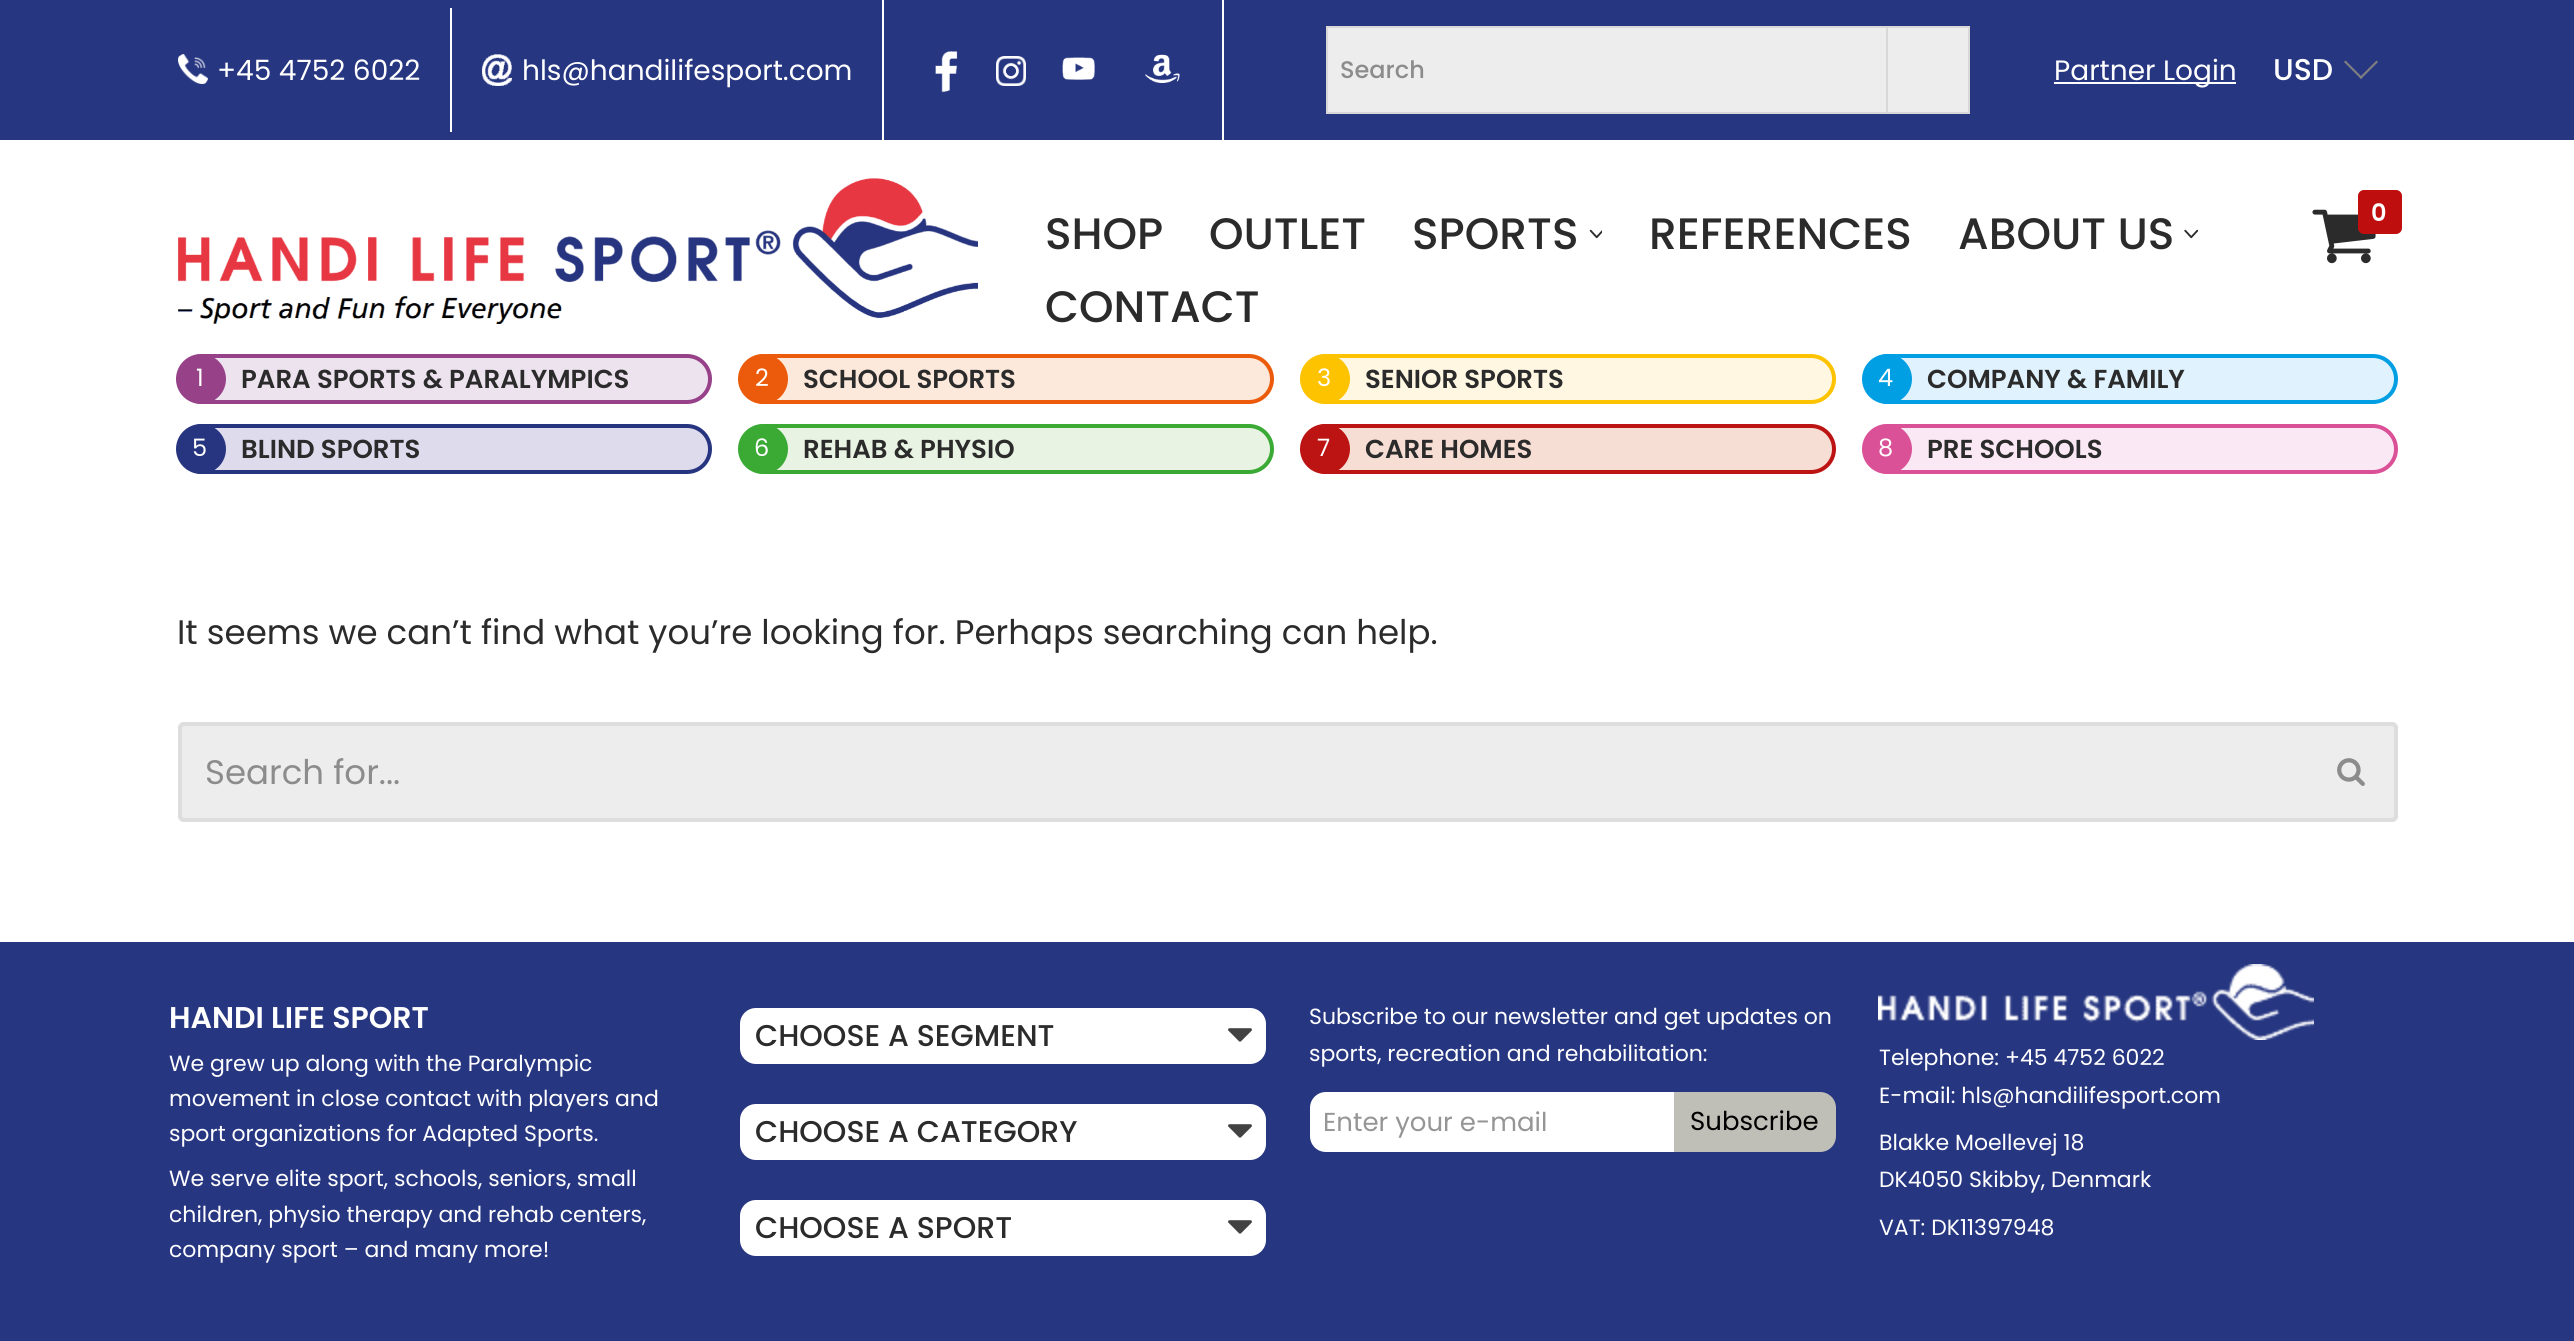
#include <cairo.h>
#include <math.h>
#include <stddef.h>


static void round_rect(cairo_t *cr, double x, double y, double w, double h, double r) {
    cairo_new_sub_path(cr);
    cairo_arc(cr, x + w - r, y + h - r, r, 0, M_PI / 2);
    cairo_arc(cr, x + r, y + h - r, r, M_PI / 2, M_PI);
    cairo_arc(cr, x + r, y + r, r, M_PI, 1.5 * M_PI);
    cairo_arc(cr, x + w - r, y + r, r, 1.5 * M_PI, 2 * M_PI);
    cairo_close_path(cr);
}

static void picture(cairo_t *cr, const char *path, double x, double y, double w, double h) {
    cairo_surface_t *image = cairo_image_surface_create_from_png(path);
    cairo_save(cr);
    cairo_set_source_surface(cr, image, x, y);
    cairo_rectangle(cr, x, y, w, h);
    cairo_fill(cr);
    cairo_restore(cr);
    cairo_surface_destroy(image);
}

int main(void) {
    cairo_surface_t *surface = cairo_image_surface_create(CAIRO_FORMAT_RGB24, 2574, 1341);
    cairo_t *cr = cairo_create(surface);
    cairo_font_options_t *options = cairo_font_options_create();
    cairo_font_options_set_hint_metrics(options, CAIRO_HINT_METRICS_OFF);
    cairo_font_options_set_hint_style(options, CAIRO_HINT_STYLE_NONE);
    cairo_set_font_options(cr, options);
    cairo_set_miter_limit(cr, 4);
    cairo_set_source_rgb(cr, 1, 1, 1);
    cairo_paint(cr);
    cairo_set_source_rgb(cr, 0.149, 0.212, 0.506);
    cairo_rectangle(cr, 0, 0, 2574, 140);
    cairo_fill(cr);
    cairo_set_source_rgb(cr, 1, 1, 1);
    cairo_rectangle(cr, 450, 8, 2, 124);
    cairo_fill(cr);
    picture(cr, "img1.png", 178, 54, 30, 30);
    cairo_select_font_face(cr, "Poppins", CAIRO_FONT_SLANT_NORMAL, CAIRO_FONT_WEIGHT_NORMAL);
    cairo_set_font_size(cr, 28);
    cairo_move_to(cr, 217, 80);
    cairo_show_text(cr, "+45 4752 6022");
    picture(cr, "img2.png", 482, 54, 30, 32);
    cairo_move_to(cr, 522, 80);
    cairo_show_text(cr, "hls@handilifesport.com");
    cairo_rectangle(cr, 1222, 0, 2, 140);
    cairo_fill(cr);
    cairo_rectangle(cr, 882, 0, 2, 140);
    cairo_fill(cr);
    picture(cr, "img3.png", 935, 51, 23, 42);
    picture(cr, "img4.png", 996, 56, 30, 30);
    picture(cr, "img5.png", 1062, 57, 33, 23);
    picture(cr, "img6.png", 1145, 54, 35, 29);
    cairo_set_source_rgb(cr, 0.929, 0.929, 0.929);
    cairo_rectangle(cr, 1887, 27, 82, 86);
    cairo_fill_preserve(cr);
    cairo_set_source_rgb(cr, 0.847, 0.847, 0.847);
    cairo_stroke(cr);
    cairo_set_source_rgb(cr, 0.929, 0.929, 0.929);
    cairo_rectangle(cr, 1327, 27, 560, 86);
    cairo_fill_preserve(cr);
    cairo_set_source_rgb(cr, 0.847, 0.847, 0.847);
    cairo_stroke(cr);
    cairo_select_font_face(cr, "Poppins Medium", CAIRO_FONT_SLANT_NORMAL, CAIRO_FONT_WEIGHT_NORMAL);
    cairo_set_font_size(cr, 24);
    cairo_set_source_rgb(cr, 0.549, 0.549, 0.549);
    cairo_move_to(cr, 1340, 78);
    cairo_show_text(cr, "Search");
    cairo_set_source_rgb(cr, 1, 1, 1);
    cairo_rectangle(cr, 2054, 82, 182, 2);
    cairo_fill(cr);
    cairo_select_font_face(cr, "Poppins", CAIRO_FONT_SLANT_NORMAL, CAIRO_FONT_WEIGHT_NORMAL);
    cairo_set_font_size(cr, 28);
    cairo_move_to(cr, 2054, 80);
    cairo_show_text(cr, "Partner Login");
    cairo_select_font_face(cr, "Poppins Medium", CAIRO_FONT_SLANT_NORMAL, CAIRO_FONT_WEIGHT_NORMAL);
    cairo_set_font_size(cr, 30);
    cairo_move_to(cr, 2273, 80);
    cairo_show_text(cr, "USD");
    cairo_set_source_rgb(cr, 0.502, 0.502, 0.502);
    cairo_new_path(cr);
    cairo_move_to(cr, 2376.5, 60.5);
    cairo_line_to(cr, 2378, 62);
    cairo_line_to(cr, 2361, 79);
    cairo_line_to(cr, 2359.5, 77.5);
    cairo_close_path(cr);
    cairo_fill(cr);
    cairo_new_path(cr);
    cairo_move_to(cr, 2345.5, 60.5);
    cairo_line_to(cr, 2362.5, 77.5);
    cairo_line_to(cr, 2361, 79);
    cairo_line_to(cr, 2344, 62);
    cairo_close_path(cr);
    cairo_fill(cr);
    picture(cr, "img7.png", 178, 178, 800, 146);
    picture(cr, "img8.png", 2312, 209, 64, 55);
    cairo_set_source_rgb(cr, 0.745, 0.055, 0.055);
    round_rect(cr, 2358, 190, 44, 44, 6);
    cairo_fill(cr);
    cairo_select_font_face(cr, "Poppins SemiBold", CAIRO_FONT_SLANT_NORMAL, CAIRO_FONT_WEIGHT_NORMAL);
    cairo_set_font_size(cr, 24);
    cairo_set_source_rgb(cr, 1, 1, 1);
    cairo_move_to(cr, 2371, 221);
    cairo_show_text(cr, "0");
    cairo_select_font_face(cr, "Poppins Medium", CAIRO_FONT_SLANT_NORMAL, CAIRO_FONT_WEIGHT_NORMAL);
    cairo_set_font_size(cr, 44);
    cairo_set_source_rgb(cr, 0.169, 0.169, 0.169);
    cairo_move_to(cr, 1045, 249);
    cairo_show_text(cr, "SHOP");
    cairo_move_to(cr, 1209, 249);
    cairo_show_text(cr, "OUTLET");
    cairo_move_to(cr, 1412, 249);
    cairo_show_text(cr, "SPORTS");
    picture(cr, "img9.png", 1589, 229, 13, 10);
    cairo_move_to(cr, 1649, 249);
    cairo_show_text(cr, "REFERENCES");
    cairo_move_to(cr, 1958, 249);
    cairo_show_text(cr, "ABOUT US");
    picture(cr, "img10.png", 2184, 229, 14, 10);
    cairo_move_to(cr, 1045, 322);
    cairo_show_text(cr, "CONTACT");
    cairo_set_source_rgb(cr, 0.929, 0.89, 0.937);
    round_rect(cr, 180, 356, 530, 46, 23);
    cairo_fill_preserve(cr);
    cairo_set_source_rgb(cr, 0.588, 0.255, 0.533);
    cairo_set_line_width(cr, 4);
    cairo_stroke(cr);
    cairo_arc(cr, 201, 379, 25, 0, 2 * M_PI);
    cairo_fill(cr);
    cairo_select_font_face(cr, "Poppins", CAIRO_FONT_SLANT_NORMAL, CAIRO_FONT_WEIGHT_NORMAL);
    cairo_set_font_size(cr, 24);
    cairo_set_source_rgb(cr, 1, 1, 1);
    cairo_move_to(cr, 196, 386);
    cairo_show_text(cr, "1");
    cairo_select_font_face(cr, "Poppins SemiBold", CAIRO_FONT_SLANT_NORMAL, CAIRO_FONT_WEIGHT_NORMAL);
    cairo_set_font_size(cr, 26);
    cairo_set_source_rgb(cr, 0.169, 0.169, 0.169);
    cairo_move_to(cr, 241, 388);
    cairo_show_text(cr, "PARA SPORTS & PARALYMPICS");
    cairo_set_source_rgb(cr, 0.992, 0.914, 0.859);
    round_rect(cr, 742, 356, 530, 46, 23);
    cairo_fill_preserve(cr);
    cairo_set_source_rgb(cr, 0.918, 0.357, 0.043);
    cairo_stroke(cr);
    cairo_arc(cr, 763, 379, 25, 0, 2 * M_PI);
    cairo_fill(cr);
    cairo_select_font_face(cr, "Poppins", CAIRO_FONT_SLANT_NORMAL, CAIRO_FONT_WEIGHT_NORMAL);
    cairo_set_font_size(cr, 24);
    cairo_set_source_rgb(cr, 1, 1, 1);
    cairo_move_to(cr, 755, 386);
    cairo_show_text(cr, "2");
    cairo_select_font_face(cr, "Poppins SemiBold", CAIRO_FONT_SLANT_NORMAL, CAIRO_FONT_WEIGHT_NORMAL);
    cairo_set_font_size(cr, 26);
    cairo_set_source_rgb(cr, 0.169, 0.169, 0.169);
    cairo_move_to(cr, 803, 388);
    cairo_show_text(cr, "SCHOOL SPORTS");
    cairo_set_source_rgb(cr, 1, 0.965, 0.886);
    round_rect(cr, 1304, 356, 530, 46, 23);
    cairo_fill_preserve(cr);
    cairo_set_source_rgb(cr, 0.992, 0.765, 0);
    cairo_stroke(cr);
    cairo_arc(cr, 1325, 379, 25, 0, 2 * M_PI);
    cairo_fill(cr);
    cairo_select_font_face(cr, "Poppins", CAIRO_FONT_SLANT_NORMAL, CAIRO_FONT_WEIGHT_NORMAL);
    cairo_set_font_size(cr, 24);
    cairo_set_source_rgb(cr, 1, 1, 1);
    cairo_move_to(cr, 1317, 386);
    cairo_show_text(cr, "3");
    cairo_select_font_face(cr, "Poppins SemiBold", CAIRO_FONT_SLANT_NORMAL, CAIRO_FONT_WEIGHT_NORMAL);
    cairo_set_font_size(cr, 26);
    cairo_set_source_rgb(cr, 0.169, 0.169, 0.169);
    cairo_move_to(cr, 1365, 388);
    cairo_show_text(cr, "SENIOR SPORTS");
    cairo_set_source_rgb(cr, 0.875, 0.949, 0.992);
    round_rect(cr, 1866, 356, 530, 46, 23);
    cairo_fill_preserve(cr);
    cairo_set_source_rgb(cr, 0, 0.624, 0.89);
    cairo_stroke(cr);
    cairo_arc(cr, 1887, 379, 25, 0, 2 * M_PI);
    cairo_fill(cr);
    cairo_select_font_face(cr, "Poppins", CAIRO_FONT_SLANT_NORMAL, CAIRO_FONT_WEIGHT_NORMAL);
    cairo_set_font_size(cr, 24);
    cairo_set_source_rgb(cr, 1, 1, 1);
    cairo_move_to(cr, 1878, 386);
    cairo_show_text(cr, "4");
    cairo_select_font_face(cr, "Poppins SemiBold", CAIRO_FONT_SLANT_NORMAL, CAIRO_FONT_WEIGHT_NORMAL);
    cairo_set_font_size(cr, 26);
    cairo_set_source_rgb(cr, 0.169, 0.169, 0.169);
    cairo_move_to(cr, 1927, 388);
    cairo_show_text(cr, "COMPANY & FAMILY");
    cairo_set_source_rgb(cr, 0.867, 0.859, 0.925);
    round_rect(cr, 180, 426, 530, 46, 23);
    cairo_fill_preserve(cr);
    cairo_set_source_rgb(cr, 0.153, 0.208, 0.502);
    cairo_stroke(cr);
    cairo_arc(cr, 201, 449, 25, 0, 2 * M_PI);
    cairo_fill(cr);
    cairo_select_font_face(cr, "Poppins", CAIRO_FONT_SLANT_NORMAL, CAIRO_FONT_WEIGHT_NORMAL);
    cairo_set_font_size(cr, 24);
    cairo_set_source_rgb(cr, 1, 1, 1);
    cairo_move_to(cr, 192, 456);
    cairo_show_text(cr, "5");
    cairo_select_font_face(cr, "Poppins SemiBold", CAIRO_FONT_SLANT_NORMAL, CAIRO_FONT_WEIGHT_NORMAL);
    cairo_set_font_size(cr, 26);
    cairo_set_source_rgb(cr, 0.169, 0.169, 0.169);
    cairo_move_to(cr, 241, 458);
    cairo_show_text(cr, "BLIND SPORTS");
    cairo_set_source_rgb(cr, 0.914, 0.953, 0.89);
    round_rect(cr, 742, 426, 530, 46, 23);
    cairo_fill_preserve(cr);
    cairo_set_source_rgb(cr, 0.227, 0.667, 0.208);
    cairo_stroke(cr);
    cairo_arc(cr, 763, 449, 25, 0, 2 * M_PI);
    cairo_fill(cr);
    cairo_select_font_face(cr, "Poppins", CAIRO_FONT_SLANT_NORMAL, CAIRO_FONT_WEIGHT_NORMAL);
    cairo_set_font_size(cr, 24);
    cairo_set_source_rgb(cr, 1, 1, 1);
    cairo_move_to(cr, 754, 456);
    cairo_show_text(cr, "6");
    cairo_select_font_face(cr, "Poppins SemiBold", CAIRO_FONT_SLANT_NORMAL, CAIRO_FONT_WEIGHT_NORMAL);
    cairo_set_font_size(cr, 26);
    cairo_set_source_rgb(cr, 0.169, 0.169, 0.169);
    cairo_move_to(cr, 803, 458);
    cairo_show_text(cr, "REHAB & PHYSIO");
    cairo_set_source_rgb(cr, 0.965, 0.871, 0.831);
    round_rect(cr, 1304, 426, 530, 46, 23);
    cairo_fill_preserve(cr);
    cairo_set_source_rgb(cr, 0.737, 0.078, 0.075);
    cairo_stroke(cr);
    cairo_arc(cr, 1325, 449, 25, 0, 2 * M_PI);
    cairo_fill(cr);
    cairo_select_font_face(cr, "Poppins", CAIRO_FONT_SLANT_NORMAL, CAIRO_FONT_WEIGHT_NORMAL);
    cairo_set_font_size(cr, 24);
    cairo_set_source_rgb(cr, 1, 1, 1);
    cairo_move_to(cr, 1317, 456);
    cairo_show_text(cr, "7");
    cairo_select_font_face(cr, "Poppins SemiBold", CAIRO_FONT_SLANT_NORMAL, CAIRO_FONT_WEIGHT_NORMAL);
    cairo_set_font_size(cr, 26);
    cairo_set_source_rgb(cr, 0.169, 0.169, 0.169);
    cairo_move_to(cr, 1365, 458);
    cairo_show_text(cr, "CARE HOMES");
    cairo_set_source_rgb(cr, 0.98, 0.914, 0.957);
    round_rect(cr, 1866, 426, 530, 46, 23);
    cairo_fill_preserve(cr);
    cairo_set_source_rgb(cr, 0.859, 0.318, 0.592);
    cairo_stroke(cr);
    cairo_arc(cr, 1887, 449, 25, 0, 2 * M_PI);
    cairo_fill(cr);
    cairo_select_font_face(cr, "Poppins", CAIRO_FONT_SLANT_NORMAL, CAIRO_FONT_WEIGHT_NORMAL);
    cairo_set_font_size(cr, 24);
    cairo_set_source_rgb(cr, 1, 1, 1);
    cairo_move_to(cr, 1878, 456);
    cairo_show_text(cr, "8");
    cairo_select_font_face(cr, "Poppins SemiBold", CAIRO_FONT_SLANT_NORMAL, CAIRO_FONT_WEIGHT_NORMAL);
    cairo_set_font_size(cr, 26);
    cairo_set_source_rgb(cr, 0.169, 0.169, 0.169);
    cairo_move_to(cr, 1927, 458);
    cairo_show_text(cr, "PRE SCHOOLS");
    cairo_select_font_face(cr, "Poppins", CAIRO_FONT_SLANT_NORMAL, CAIRO_FONT_WEIGHT_NORMAL);
    cairo_set_font_size(cr, 34);
    cairo_move_to(cr, 177, 644);
    cairo_show_text(cr, "It seems we can’t find what you’re looking for. Perhaps searching can help.");
    cairo_set_source_rgb(cr, 0.929, 0.929, 0.929);
    cairo_new_path(cr);
    cairo_move_to(cr, 184, 722);
    cairo_line_to(cr, 2308, 722);
    cairo_line_to(cr, 2308, 822);
    cairo_line_to(cr, 184, 822);
    cairo_curve_to(cr, 180.5, 822, 178, 819.5, 178, 816);
    cairo_line_to(cr, 178, 728);
    cairo_curve_to(cr, 178, 724.5, 180.5, 722, 184, 722);
    cairo_close_path(cr);
    cairo_fill(cr);
    cairo_set_source_rgb(cr, 0.867, 0.867, 0.867);
    cairo_set_fill_rule(cr, CAIRO_FILL_RULE_EVEN_ODD);
    cairo_new_path(cr);
    cairo_move_to(cr, 184, 722);
    cairo_line_to(cr, 2308, 722);
    cairo_line_to(cr, 2308, 822);
    cairo_line_to(cr, 184, 822);
    cairo_curve_to(cr, 181, 822, 178, 819, 178, 816);
    cairo_line_to(cr, 178, 728);
    cairo_curve_to(cr, 178, 725, 181, 722, 184, 722);
    cairo_close_path(cr);
    cairo_move_to(cr, 184, 726);
    cairo_line_to(cr, 2308, 726);
    cairo_line_to(cr, 2308, 818);
    cairo_line_to(cr, 184, 818);
    cairo_curve_to(cr, 183, 818, 182, 817, 182, 816);
    cairo_line_to(cr, 182, 728);
    cairo_curve_to(cr, 182, 727, 183, 726, 184, 726);
    cairo_close_path(cr);
    cairo_fill(cr);
    cairo_set_source_rgb(cr, 0.549, 0.549, 0.549);
    cairo_move_to(cr, 205, 784);
    cairo_show_text(cr, "Search for...");
    cairo_set_source_rgb(cr, 0.929, 0.929, 0.929);
    cairo_new_path(cr);
    cairo_move_to(cr, 2308, 722);
    cairo_line_to(cr, 2392, 722);
    cairo_curve_to(cr, 2395.5, 722, 2398, 724.5, 2398, 728);
    cairo_line_to(cr, 2398, 816);
    cairo_curve_to(cr, 2398, 819.5, 2395.5, 822, 2392, 822);
    cairo_line_to(cr, 2308, 822);
    cairo_close_path(cr);
    cairo_fill(cr);
    cairo_set_source_rgb(cr, 0.867, 0.867, 0.867);
    cairo_new_path(cr);
    cairo_move_to(cr, 2308, 722);
    cairo_line_to(cr, 2392, 722);
    cairo_curve_to(cr, 2395, 722, 2398, 725, 2398, 728);
    cairo_line_to(cr, 2398, 816);
    cairo_curve_to(cr, 2398, 819, 2395, 822, 2392, 822);
    cairo_line_to(cr, 2308, 822);
    cairo_close_path(cr);
    cairo_move_to(cr, 2308, 726);
    cairo_line_to(cr, 2392, 726);
    cairo_curve_to(cr, 2393, 726, 2394, 727, 2394, 728);
    cairo_line_to(cr, 2394, 816);
    cairo_curve_to(cr, 2394, 817, 2393, 818, 2392, 818);
    cairo_line_to(cr, 2308, 818);
    cairo_close_path(cr);
    cairo_fill(cr);
    picture(cr, "img11.png", 2337, 758, 28, 28);
    cairo_set_source_rgb(cr, 0.149, 0.212, 0.506);
    cairo_rectangle(cr, 0, 942, 2574, 399);
    cairo_fill(cr);
    cairo_select_font_face(cr, "Poppins SemiBold", CAIRO_FONT_SLANT_NORMAL, CAIRO_FONT_WEIGHT_NORMAL);
    cairo_set_font_size(cr, 30);
    cairo_set_source_rgb(cr, 1, 1, 1);
    cairo_move_to(cr, 169, 1028);
    cairo_show_text(cr, "HANDI LIFE SPORT");
    cairo_select_font_face(cr, "Poppins", CAIRO_FONT_SLANT_NORMAL, CAIRO_FONT_WEIGHT_NORMAL);
    cairo_set_font_size(cr, 22);
    cairo_move_to(cr, 169, 1071);
    cairo_show_text(cr, "We grew up along with the Paralympic");
    cairo_move_to(cr, 169, 1106);
    cairo_show_text(cr, "movement in close contact with players and");
    cairo_move_to(cr, 169, 1141);
    cairo_show_text(cr, "sport organizations for Adapted Sports.");
    cairo_move_to(cr, 169, 1186);
    cairo_show_text(cr, "We serve elite sport, schools, seniors, small");
    cairo_move_to(cr, 169, 1222);
    cairo_show_text(cr, "children, physio therapy and rehab centers,");
    cairo_move_to(cr, 169, 1257);
    cairo_show_text(cr, "company sport – and many more!");
    round_rect(cr, 740, 1008, 526, 56, 16);
    cairo_fill(cr);
    picture(cr, "img12.png", 1228, 1028, 24, 14);
    cairo_select_font_face(cr, "Poppins Medium", CAIRO_FONT_SLANT_NORMAL, CAIRO_FONT_WEIGHT_NORMAL);
    cairo_set_font_size(cr, 30);
    cairo_set_source_rgb(cr, 0.169, 0.169, 0.169);
    cairo_move_to(cr, 755, 1046);
    cairo_show_text(cr, "CHOOSE A SEGMENT");
    cairo_set_source_rgb(cr, 1, 1, 1);
    round_rect(cr, 740, 1104, 526, 56, 16);
    cairo_fill(cr);
    picture(cr, "img12.png", 1228, 1124, 24, 14);
    cairo_set_source_rgb(cr, 0.169, 0.169, 0.169);
    cairo_move_to(cr, 755, 1142);
    cairo_show_text(cr, "CHOOSE A CATEGORY");
    cairo_set_source_rgb(cr, 1, 1, 1);
    round_rect(cr, 740, 1200, 526, 56, 16);
    cairo_fill(cr);
    picture(cr, "img12.png", 1228, 1220, 24, 14);
    cairo_set_source_rgb(cr, 0.169, 0.169, 0.169);
    cairo_move_to(cr, 755, 1238);
    cairo_show_text(cr, "CHOOSE A SPORT");
    cairo_select_font_face(cr, "Poppins", CAIRO_FONT_SLANT_NORMAL, CAIRO_FONT_WEIGHT_NORMAL);
    cairo_set_font_size(cr, 22);
    cairo_set_source_rgb(cr, 1, 1, 1);
    cairo_move_to(cr, 1309, 1024);
    cairo_show_text(cr, "Subscribe to our newsletter and get updates on");
    cairo_move_to(cr, 1309, 1061);
    cairo_show_text(cr, "sports, recreation and rehabilitation:");
    cairo_new_path(cr);
    cairo_move_to(cr, 1326, 1092);
    cairo_line_to(cr, 1674, 1092);
    cairo_line_to(cr, 1674, 1152);
    cairo_line_to(cr, 1326, 1152);
    cairo_curve_to(cr, 1317, 1152, 1310, 1145, 1310, 1136);
    cairo_line_to(cr, 1310, 1108);
    cairo_curve_to(cr, 1310, 1099, 1317, 1092, 1326, 1092);
    cairo_close_path(cr);
    cairo_fill(cr);
    cairo_set_font_size(cr, 26);
    cairo_set_source_rgb(cr, 0.584, 0.584, 0.584);
    cairo_move_to(cr, 1323, 1131);
    cairo_show_text(cr, "Enter your e-mail");
    cairo_set_source_rgb(cr, 0.749, 0.749, 0.718);
    cairo_new_path(cr);
    cairo_move_to(cr, 1674, 1092);
    cairo_line_to(cr, 1820, 1092);
    cairo_curve_to(cr, 1829, 1092, 1836, 1099, 1836, 1108);
    cairo_line_to(cr, 1836, 1136);
    cairo_curve_to(cr, 1836, 1145, 1829, 1152, 1820, 1152);
    cairo_line_to(cr, 1674, 1152);
    cairo_close_path(cr);
    cairo_fill(cr);
    cairo_set_source_rgb(cr, 0, 0, 0);
    cairo_move_to(cr, 1690, 1130);
    cairo_show_text(cr, "Subscribe");
    picture(cr, "img13.png", 1878, 964, 436, 76);
    cairo_set_font_size(cr, 22);
    cairo_set_source_rgb(cr, 1, 1, 1);
    cairo_move_to(cr, 1879, 1065);
    cairo_show_text(cr, "Telephone: +45 4752 6022");
    cairo_move_to(cr, 1879, 1103);
    cairo_show_text(cr, "E-mail: hls@handilifesport.com");
    cairo_move_to(cr, 1879, 1150);
    cairo_show_text(cr, "Blakke Moellevej 18");
    cairo_move_to(cr, 1879, 1187);
    cairo_show_text(cr, "DK4050 Skibby, Denmark");
    cairo_move_to(cr, 1879, 1235);
    cairo_show_text(cr, "VAT: DK11397948");
    cairo_surface_write_to_png(surface, "page.png");
    cairo_font_options_destroy(options);
    cairo_destroy(cr);
    cairo_surface_destroy(surface);
    return 0;
}
